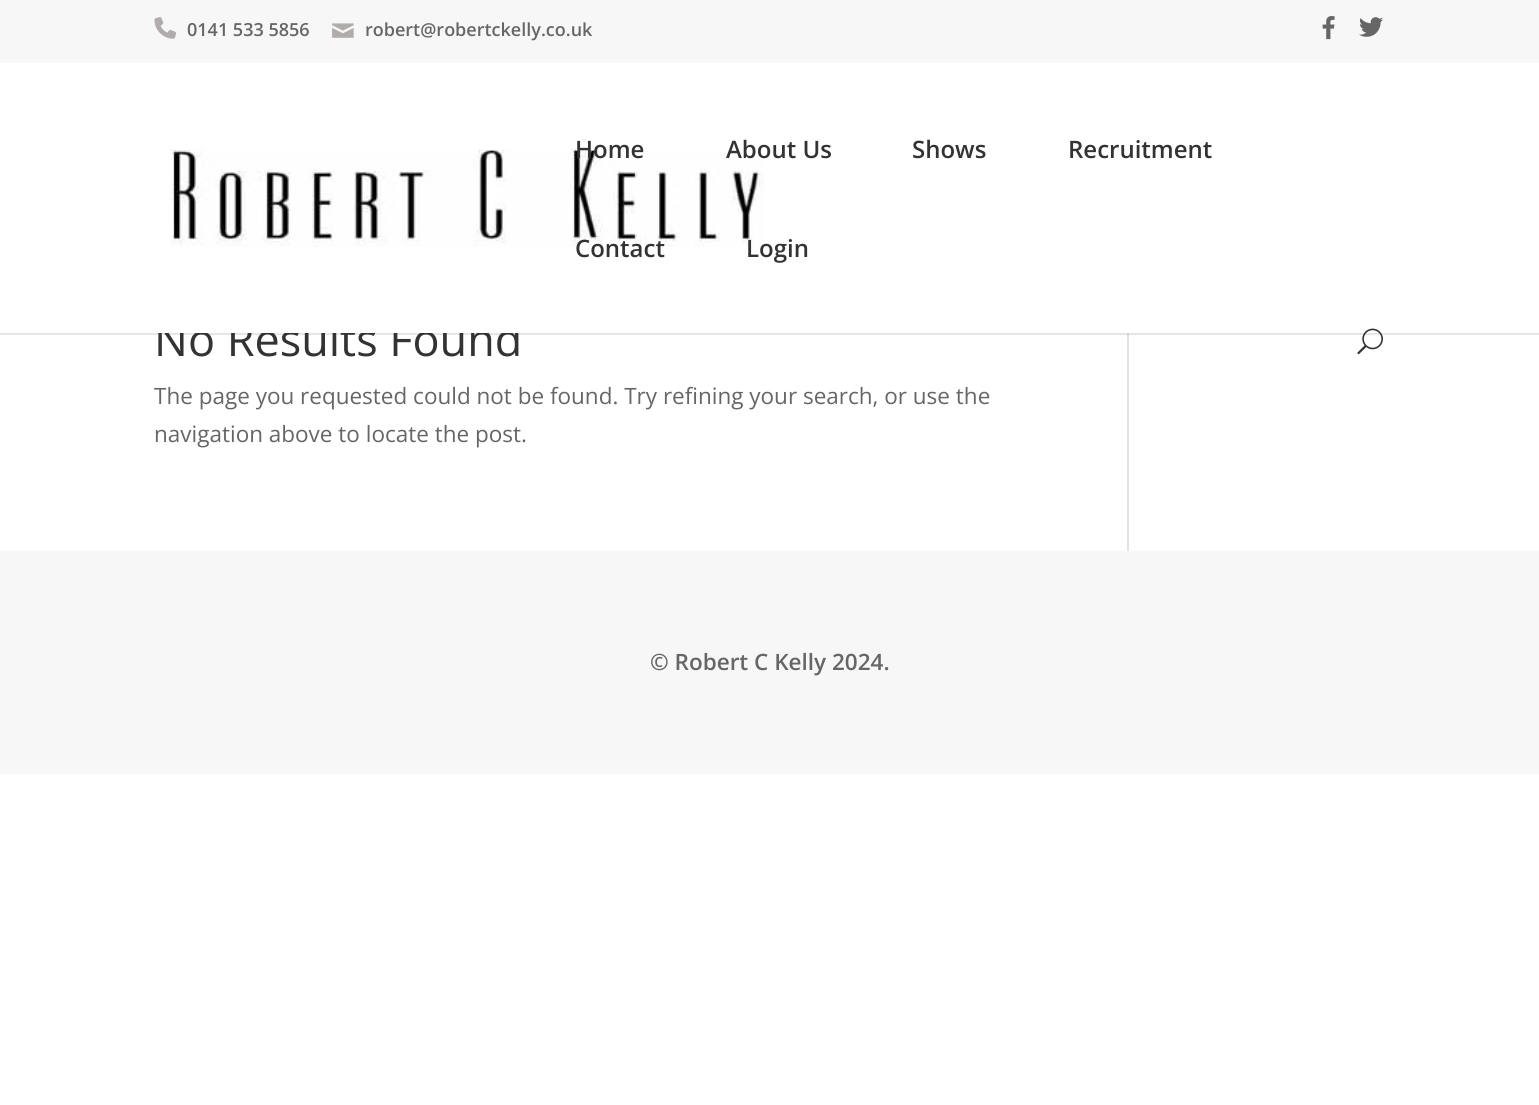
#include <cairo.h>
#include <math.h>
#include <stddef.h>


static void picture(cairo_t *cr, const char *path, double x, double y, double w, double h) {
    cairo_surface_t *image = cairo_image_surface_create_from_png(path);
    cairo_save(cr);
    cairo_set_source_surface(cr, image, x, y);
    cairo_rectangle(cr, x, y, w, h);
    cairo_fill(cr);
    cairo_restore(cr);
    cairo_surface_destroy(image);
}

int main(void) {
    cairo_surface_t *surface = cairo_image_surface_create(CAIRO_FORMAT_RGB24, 1539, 1105);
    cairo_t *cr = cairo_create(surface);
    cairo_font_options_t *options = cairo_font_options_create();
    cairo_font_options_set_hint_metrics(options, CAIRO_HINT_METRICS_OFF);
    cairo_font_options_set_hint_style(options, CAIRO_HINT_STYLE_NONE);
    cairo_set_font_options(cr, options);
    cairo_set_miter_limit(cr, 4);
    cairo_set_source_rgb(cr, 1, 1, 1);
    cairo_paint(cr);
    cairo_set_source_rgb(cr, 0.965, 0.965, 0.965);
    cairo_rectangle(cr, 0, 0, 1539, 63);
    cairo_fill(cr);
    picture(cr, "img1.png", 154, 17, 23, 22);
    cairo_select_font_face(cr, "Open Sans SemiBold", CAIRO_FONT_SLANT_NORMAL, CAIRO_FONT_WEIGHT_NORMAL);
    cairo_set_font_size(cr, 18);
    cairo_set_source_rgb(cr, 0.4, 0.4, 0.4);
    cairo_move_to(cr, 187, 36);
    cairo_show_text(cr, "0141 533 5856");
    picture(cr, "img2.png", 332, 23, 22, 15);
    cairo_move_to(cr, 365, 36);
    cairo_show_text(cr, "robert@robertckelly.co.uk");
    picture(cr, "img3.png", 1322, 16, 13, 24);
    picture(cr, "img4.png", 1359, 17, 24, 20);
    cairo_set_source_rgb(cr, 0.886, 0.886, 0.886);
    cairo_rectangle(cr, 1127, 333, 2, 218);
    cairo_fill(cr);
    cairo_set_source_rgba(cr, 0, 0, 0, 0.1);
    cairo_rectangle(cr, 0, 333, 1539, 2);
    cairo_fill(cr);
    cairo_select_font_face(cr, "Open Sans", CAIRO_FONT_SLANT_NORMAL, CAIRO_FONT_WEIGHT_NORMAL);
    cairo_set_font_size(cr, 45);
    cairo_set_source_rgb(cr, 0.2, 0.2, 0.2);
    cairo_move_to(cr, 154, 356);
    cairo_show_text(cr, "No Results Found");
    cairo_set_source_rgb(cr, 1, 1, 1);
    cairo_rectangle(cr, 158, 321, 361, 12);
    cairo_fill(cr);
    picture(cr, "img5.png", 171, 149, 593, 98);
    cairo_select_font_face(cr, "Open Sans SemiBold", CAIRO_FONT_SLANT_NORMAL, CAIRO_FONT_WEIGHT_NORMAL);
    cairo_set_font_size(cr, 24);
    cairo_set_source_rgb(cr, 0.2, 0.2, 0.2);
    cairo_move_to(cr, 575, 158);
    cairo_show_text(cr, "Home");
    cairo_move_to(cr, 726, 158);
    cairo_show_text(cr, "About Us");
    cairo_move_to(cr, 912, 158);
    cairo_show_text(cr, "Shows");
    cairo_move_to(cr, 1068, 158);
    cairo_show_text(cr, "Recruitment");
    cairo_move_to(cr, 575, 257);
    cairo_show_text(cr, "Contact");
    cairo_move_to(cr, 746, 257);
    cairo_show_text(cr, "Login");
    picture(cr, "img6.png", 1357, 328, 26, 27);
    cairo_select_font_face(cr, "Open Sans", CAIRO_FONT_SLANT_NORMAL, CAIRO_FONT_WEIGHT_NORMAL);
    cairo_set_font_size(cr, 22.5);
    cairo_set_source_rgb(cr, 0.4, 0.4, 0.4);
    cairo_move_to(cr, 154, 404);
    cairo_show_text(cr, "The page you requested could not be found. Try refining your search, or use the");
    cairo_move_to(cr, 154, 442);
    cairo_show_text(cr, "navigation above to locate the post.");
    cairo_set_source_rgb(cr, 0.965, 0.965, 0.965);
    cairo_rectangle(cr, 0, 551, 1539, 223);
    cairo_fill(cr);
    cairo_select_font_face(cr, "Open Sans SemiBold", CAIRO_FONT_SLANT_NORMAL, CAIRO_FONT_WEIGHT_NORMAL);
    cairo_set_source_rgb(cr, 0.4, 0.4, 0.4);
    cairo_move_to(cr, 650, 670);
    cairo_show_text(cr, "© Robert C Kelly 2024.");
    cairo_surface_write_to_png(surface, "page.png");
    cairo_font_options_destroy(options);
    cairo_destroy(cr);
    cairo_surface_destroy(surface);
    return 0;
}
